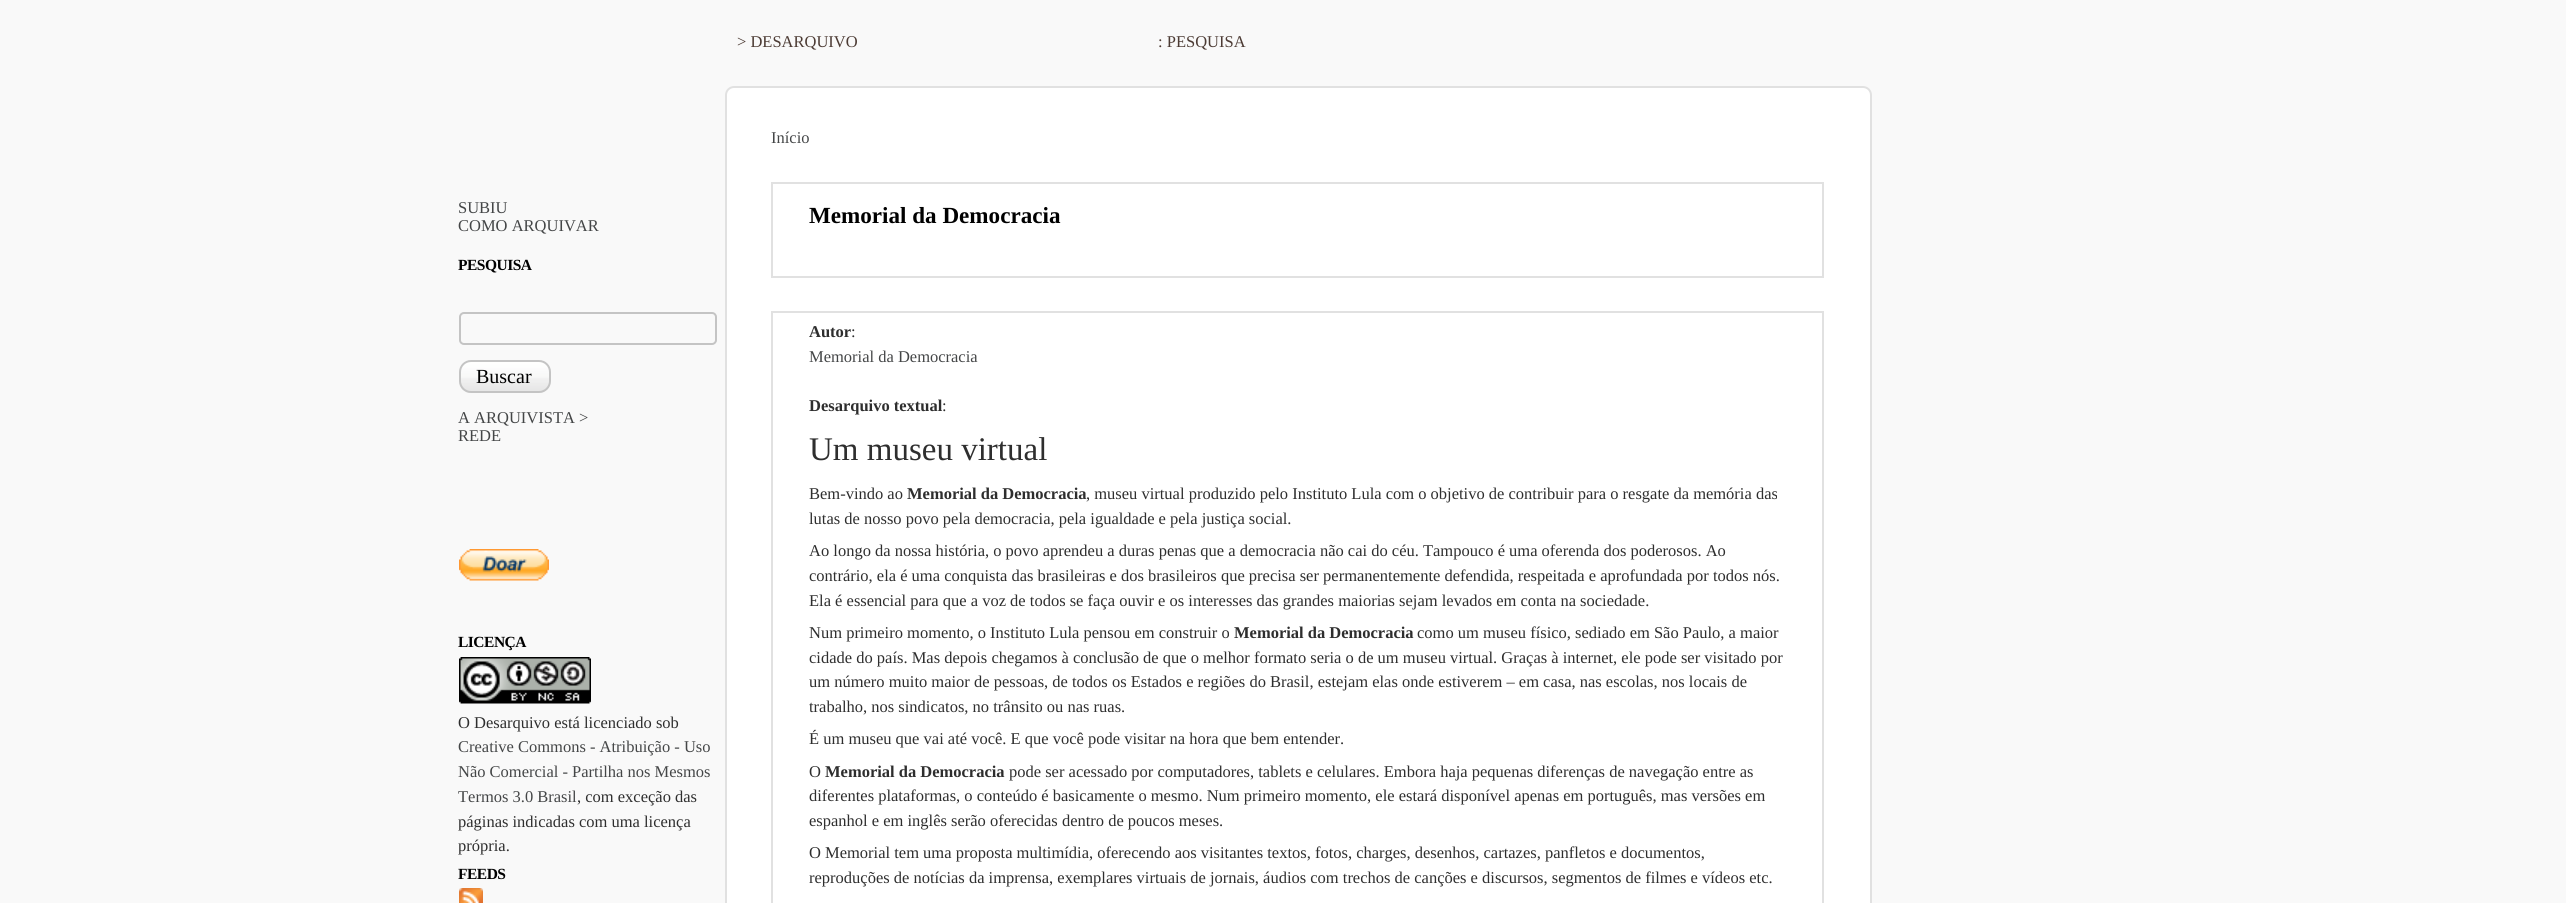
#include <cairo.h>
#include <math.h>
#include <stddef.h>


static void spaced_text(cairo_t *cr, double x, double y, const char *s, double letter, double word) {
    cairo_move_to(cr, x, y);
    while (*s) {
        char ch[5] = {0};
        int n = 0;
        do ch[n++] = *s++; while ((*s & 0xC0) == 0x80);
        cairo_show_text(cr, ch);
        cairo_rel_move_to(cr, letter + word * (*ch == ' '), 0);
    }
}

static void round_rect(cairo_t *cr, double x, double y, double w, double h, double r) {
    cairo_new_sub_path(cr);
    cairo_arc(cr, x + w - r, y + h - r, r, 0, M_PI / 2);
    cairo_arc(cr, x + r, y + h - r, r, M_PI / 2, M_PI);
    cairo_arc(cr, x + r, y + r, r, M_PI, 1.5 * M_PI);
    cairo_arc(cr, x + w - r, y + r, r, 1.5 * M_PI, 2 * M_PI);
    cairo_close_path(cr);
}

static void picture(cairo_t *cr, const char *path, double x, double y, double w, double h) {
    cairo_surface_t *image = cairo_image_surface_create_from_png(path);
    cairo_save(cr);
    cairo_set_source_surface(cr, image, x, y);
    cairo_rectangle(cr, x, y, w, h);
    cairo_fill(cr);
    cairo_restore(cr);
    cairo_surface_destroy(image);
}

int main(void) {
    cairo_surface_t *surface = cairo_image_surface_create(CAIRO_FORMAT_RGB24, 2566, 903);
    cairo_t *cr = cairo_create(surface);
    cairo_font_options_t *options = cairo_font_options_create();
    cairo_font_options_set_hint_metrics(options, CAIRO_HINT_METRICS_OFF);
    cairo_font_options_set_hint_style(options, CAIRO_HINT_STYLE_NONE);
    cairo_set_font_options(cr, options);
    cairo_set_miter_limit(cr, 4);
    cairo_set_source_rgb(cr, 0.973, 0.973, 0.973);
    cairo_paint(cr);
    cairo_select_font_face(cr, "Liberation Serif", CAIRO_FONT_SLANT_NORMAL, CAIRO_FONT_WEIGHT_NORMAL);
    cairo_set_font_size(cr, 16.5);
    cairo_set_source_rgb(cr, 0.298, 0.231, 0.204);
    cairo_move_to(cr, 737, 47);
    cairo_show_text(cr, "> DESARQUIVO");
    cairo_move_to(cr, 1158, 47);
    cairo_show_text(cr, ": PESQUISA");
    cairo_set_source_rgb(cr, 0.267, 0.275, 0.278);
    cairo_move_to(cr, 458, 213);
    cairo_show_text(cr, "SUBIU");
    cairo_move_to(cr, 458, 231);
    cairo_show_text(cr, "COMO ARQUIVAR");
    cairo_select_font_face(cr, "Liberation Serif", CAIRO_FONT_SLANT_NORMAL, CAIRO_FONT_WEIGHT_BOLD);
    cairo_set_font_size(cr, 15.5);
    cairo_set_source_rgb(cr, 0, 0, 0);
    spaced_text(cr, 458, 270, "PESQUISA", -0.5, 0);
    round_rect(cr, 460, 313, 256, 31, 4);
    cairo_set_source_rgb(cr, 0.769, 0.769, 0.769);
    cairo_stroke(cr);
    picture(cr, "img1.png", 459, 362, 91, 31);
    round_rect(cr, 460, 361, 90, 31, 11);
    cairo_stroke(cr);
    cairo_select_font_face(cr, "Liberation Serif", CAIRO_FONT_SLANT_NORMAL, CAIRO_FONT_WEIGHT_NORMAL);
    cairo_set_font_size(cr, 20);
    cairo_set_source_rgb(cr, 0, 0, 0);
    cairo_move_to(cr, 476, 383);
    cairo_show_text(cr, "Buscar");
    cairo_set_font_size(cr, 16.5);
    cairo_set_source_rgb(cr, 0.267, 0.275, 0.278);
    cairo_move_to(cr, 458, 423);
    cairo_show_text(cr, "A ARQUIVISTA >");
    cairo_move_to(cr, 458, 441);
    cairo_show_text(cr, "REDE");
    picture(cr, "img2.png", 459, 549, 90, 32);
    cairo_select_font_face(cr, "Liberation Serif", CAIRO_FONT_SLANT_NORMAL, CAIRO_FONT_WEIGHT_BOLD);
    cairo_set_font_size(cr, 15.5);
    cairo_set_source_rgb(cr, 0, 0, 0);
    spaced_text(cr, 458, 647, "LICENÇA", -0.5, 0);
    picture(cr, "img3.png", 459, 657, 132, 47);
    cairo_select_font_face(cr, "Liberation Serif", CAIRO_FONT_SLANT_NORMAL, CAIRO_FONT_WEIGHT_NORMAL);
    cairo_set_font_size(cr, 16.5);
    cairo_set_source_rgb(cr, 0.18, 0.18, 0.18);
    cairo_move_to(cr, 458, 728);
    cairo_show_text(cr, "O Desarquivo está licenciado sob");
    cairo_set_source_rgb(cr, 0.267, 0.275, 0.278);
    cairo_move_to(cr, 458, 752);
    cairo_show_text(cr, "Creative Commons - Atribuição - Uso");
    cairo_move_to(cr, 458, 777);
    cairo_show_text(cr, "Não Comercial - Partilha nos Mesmos");
    cairo_move_to(cr, 458, 802);
    cairo_show_text(cr, "Termos 3.0 Brasil");
    cairo_set_source_rgb(cr, 0.18, 0.18, 0.18);
    cairo_move_to(cr, 577, 802);
    cairo_show_text(cr, ", com exceção das");
    cairo_move_to(cr, 458, 827);
    cairo_show_text(cr, "páginas indicadas com uma licença");
    cairo_move_to(cr, 458, 851);
    cairo_show_text(cr, "própria.");
    cairo_select_font_face(cr, "Liberation Serif", CAIRO_FONT_SLANT_NORMAL, CAIRO_FONT_WEIGHT_BOLD);
    cairo_set_font_size(cr, 15.5);
    cairo_set_source_rgb(cr, 0, 0, 0);
    spaced_text(cr, 458, 879, "FEEDS", -0.5, 0);
    picture(cr, "img4.png", 459, 888, 24, 15);
    cairo_set_source_rgb(cr, 1, 1, 1);
    round_rect(cr, 726, 87, 1145, 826, 8);
    cairo_fill_preserve(cr);
    cairo_set_source_rgb(cr, 0.882, 0.882, 0.882);
    cairo_stroke(cr);
    cairo_select_font_face(cr, "Liberation Serif", CAIRO_FONT_SLANT_NORMAL, CAIRO_FONT_WEIGHT_NORMAL);
    cairo_set_font_size(cr, 16.5);
    cairo_set_source_rgb(cr, 0.267, 0.275, 0.278);
    cairo_move_to(cr, 771, 143);
    cairo_show_text(cr, "Início");
    cairo_rectangle(cr, 772, 183, 1051, 94);
    cairo_set_source_rgb(cr, 0.882, 0.882, 0.882);
    cairo_stroke(cr);
    cairo_select_font_face(cr, "Liberation Serif", CAIRO_FONT_SLANT_NORMAL, CAIRO_FONT_WEIGHT_BOLD);
    cairo_set_font_size(cr, 23.1);
    cairo_set_source_rgb(cr, 0, 0, 0);
    cairo_move_to(cr, 809, 223);
    cairo_show_text(cr, "Memorial da Democracia");
    cairo_rectangle(cr, 772, 312, 1051, 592);
    cairo_set_source_rgb(cr, 0.882, 0.882, 0.882);
    cairo_stroke(cr);
    cairo_set_font_size(cr, 16.5);
    cairo_set_source_rgb(cr, 0.18, 0.18, 0.18);
    cairo_move_to(cr, 809, 337);
    cairo_show_text(cr, "Autor");
    cairo_select_font_face(cr, "Liberation Serif", CAIRO_FONT_SLANT_NORMAL, CAIRO_FONT_WEIGHT_NORMAL);
    cairo_move_to(cr, 851, 337);
    cairo_show_text(cr, ":");
    cairo_set_source_rgb(cr, 0.267, 0.275, 0.278);
    cairo_move_to(cr, 809, 362);
    cairo_show_text(cr, "Memorial da Democracia");
    cairo_select_font_face(cr, "Liberation Serif", CAIRO_FONT_SLANT_NORMAL, CAIRO_FONT_WEIGHT_BOLD);
    cairo_set_source_rgb(cr, 0.18, 0.18, 0.18);
    cairo_move_to(cr, 809, 411);
    cairo_show_text(cr, "Desarquivo textual");
    cairo_select_font_face(cr, "Liberation Serif", CAIRO_FONT_SLANT_NORMAL, CAIRO_FONT_WEIGHT_NORMAL);
    cairo_move_to(cr, 942, 411);
    cairo_show_text(cr, ":");
    cairo_set_font_size(cr, 33);
    cairo_move_to(cr, 809, 460);
    cairo_show_text(cr, "Um museu virtual");
    cairo_set_font_size(cr, 16.5);
    cairo_move_to(cr, 809, 499);
    cairo_show_text(cr, "Bem-vindo ao");
    cairo_select_font_face(cr, "Liberation Serif", CAIRO_FONT_SLANT_NORMAL, CAIRO_FONT_WEIGHT_BOLD);
    cairo_move_to(cr, 907, 499);
    cairo_show_text(cr, "Memorial da Democracia");
    cairo_select_font_face(cr, "Liberation Serif", CAIRO_FONT_SLANT_NORMAL, CAIRO_FONT_WEIGHT_NORMAL);
    cairo_move_to(cr, 1086, 499);
    cairo_show_text(cr, ", museu virtual produzido pelo Instituto Lula com o objetivo de contribuir para o resgate da memória das");
    cairo_move_to(cr, 809, 524);
    cairo_show_text(cr, "lutas de nosso povo pela democracia, pela igualdade e pela justiça social.");
    cairo_move_to(cr, 809, 556);
    cairo_show_text(cr, "Ao longo da nossa história, o povo aprendeu a duras penas que a democracia não cai do céu. Tampouco é uma oferenda dos poderosos. Ao");
    cairo_move_to(cr, 809, 581);
    cairo_show_text(cr, "contrário, ela é uma conquista das brasileiras e dos brasileiros que precisa ser permanentemente defendida, respeitada e aprofundada por todos nós.");
    cairo_move_to(cr, 809, 606);
    cairo_show_text(cr, "Ela é essencial para que a voz de todos se faça ouvir e os interesses das grandes maiorias sejam levados em conta na sociedade.");
    cairo_move_to(cr, 809, 638);
    cairo_show_text(cr, "Num primeiro momento, o Instituto Lula pensou em construir o");
    cairo_select_font_face(cr, "Liberation Serif", CAIRO_FONT_SLANT_NORMAL, CAIRO_FONT_WEIGHT_BOLD);
    cairo_move_to(cr, 1234, 638);
    cairo_show_text(cr, "Memorial da Democracia");
    cairo_select_font_face(cr, "Liberation Serif", CAIRO_FONT_SLANT_NORMAL, CAIRO_FONT_WEIGHT_NORMAL);
    cairo_move_to(cr, 1417, 638);
    cairo_show_text(cr, "como um museu físico, sediado em São Paulo, a maior");
    cairo_move_to(cr, 809, 663);
    cairo_show_text(cr, "cidade do país. Mas depois chegamos à conclusão de que o melhor formato seria o de um museu virtual. Graças à internet, ele pode ser visitado por");
    cairo_move_to(cr, 809, 687);
    cairo_show_text(cr, "um número muito maior de pessoas, de todos os Estados e regiões do Brasil, estejam elas onde estiverem – em casa, nas escolas, nos locais de");
    cairo_move_to(cr, 809, 712);
    cairo_show_text(cr, "trabalho, nos sindicatos, no trânsito ou nas ruas.");
    cairo_move_to(cr, 809, 744);
    cairo_show_text(cr, "É um museu que vai até você. E que você pode visitar na hora que bem entender.");
    cairo_move_to(cr, 809, 777);
    cairo_show_text(cr, "O");
    cairo_select_font_face(cr, "Liberation Serif", CAIRO_FONT_SLANT_NORMAL, CAIRO_FONT_WEIGHT_BOLD);
    cairo_move_to(cr, 825, 777);
    cairo_show_text(cr, "Memorial da Democracia");
    cairo_select_font_face(cr, "Liberation Serif", CAIRO_FONT_SLANT_NORMAL, CAIRO_FONT_WEIGHT_NORMAL);
    cairo_move_to(cr, 1009, 777);
    cairo_show_text(cr, "pode ser acessado por computadores, tablets e celulares. Embora haja pequenas diferenças de navegação entre as");
    cairo_move_to(cr, 809, 801);
    cairo_show_text(cr, "diferentes plataformas, o conteúdo é basicamente o mesmo. Num primeiro momento, ele estará disponível apenas em português, mas versões em");
    cairo_move_to(cr, 809, 826);
    cairo_show_text(cr, "espanhol e em inglês serão oferecidas dentro de poucos meses.");
    cairo_move_to(cr, 809, 858);
    cairo_show_text(cr, "O Memorial tem uma proposta multimídia, oferecendo aos visitantes textos, fotos, charges, desenhos, cartazes, panfletos e documentos,");
    cairo_move_to(cr, 809, 883);
    cairo_show_text(cr, "reproduções de notícias da imprensa, exemplares virtuais de jornais, áudios com trechos de canções e discursos, segmentos de filmes e vídeos etc.");
    cairo_surface_write_to_png(surface, "page.png");
    cairo_font_options_destroy(options);
    cairo_destroy(cr);
    cairo_surface_destroy(surface);
    return 0;
}
